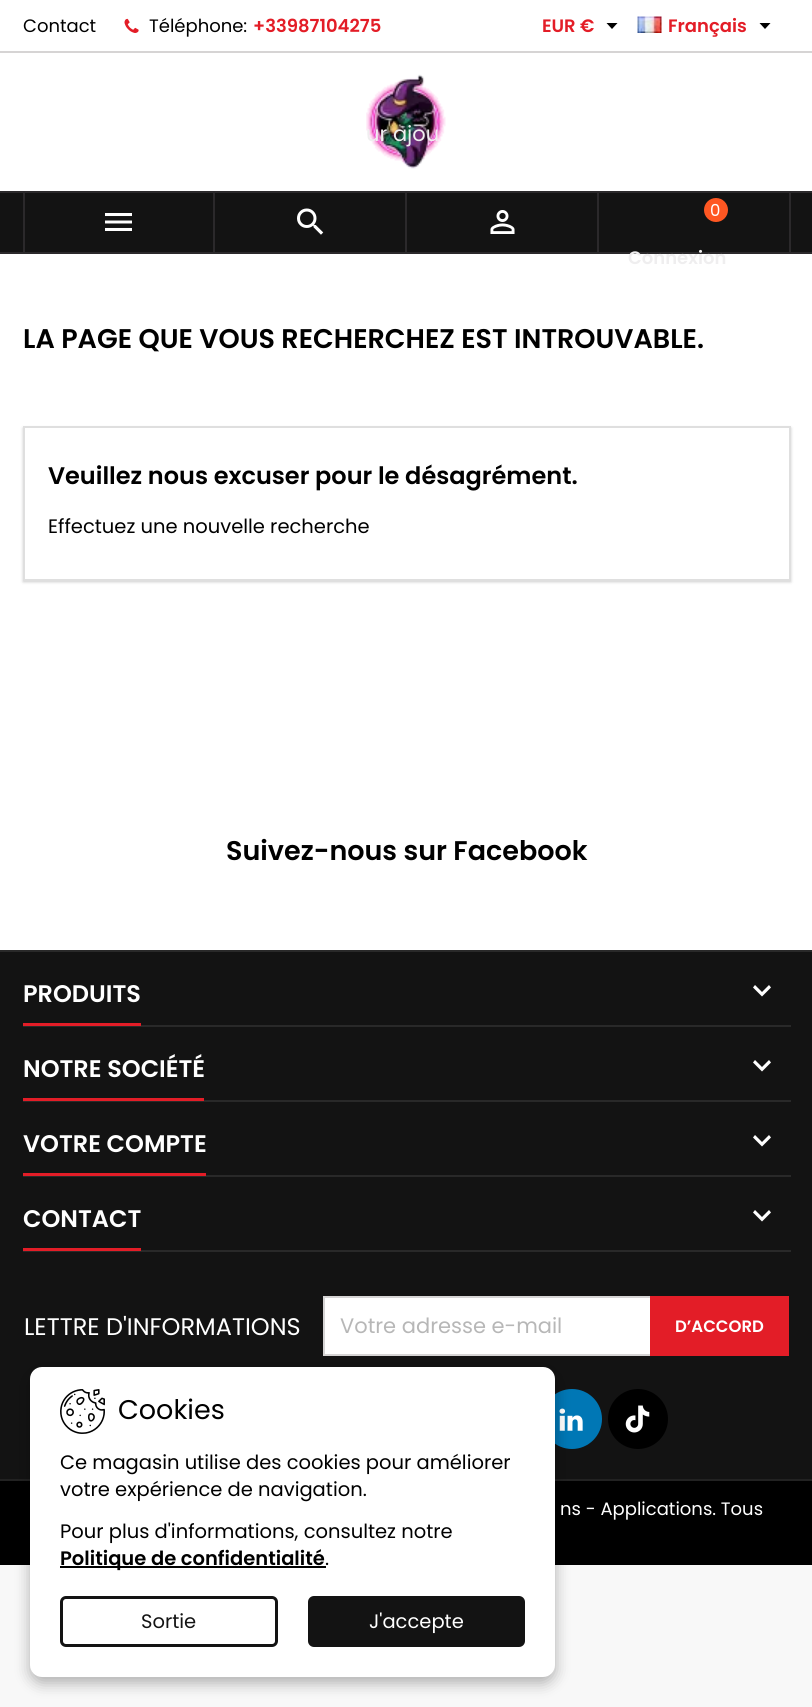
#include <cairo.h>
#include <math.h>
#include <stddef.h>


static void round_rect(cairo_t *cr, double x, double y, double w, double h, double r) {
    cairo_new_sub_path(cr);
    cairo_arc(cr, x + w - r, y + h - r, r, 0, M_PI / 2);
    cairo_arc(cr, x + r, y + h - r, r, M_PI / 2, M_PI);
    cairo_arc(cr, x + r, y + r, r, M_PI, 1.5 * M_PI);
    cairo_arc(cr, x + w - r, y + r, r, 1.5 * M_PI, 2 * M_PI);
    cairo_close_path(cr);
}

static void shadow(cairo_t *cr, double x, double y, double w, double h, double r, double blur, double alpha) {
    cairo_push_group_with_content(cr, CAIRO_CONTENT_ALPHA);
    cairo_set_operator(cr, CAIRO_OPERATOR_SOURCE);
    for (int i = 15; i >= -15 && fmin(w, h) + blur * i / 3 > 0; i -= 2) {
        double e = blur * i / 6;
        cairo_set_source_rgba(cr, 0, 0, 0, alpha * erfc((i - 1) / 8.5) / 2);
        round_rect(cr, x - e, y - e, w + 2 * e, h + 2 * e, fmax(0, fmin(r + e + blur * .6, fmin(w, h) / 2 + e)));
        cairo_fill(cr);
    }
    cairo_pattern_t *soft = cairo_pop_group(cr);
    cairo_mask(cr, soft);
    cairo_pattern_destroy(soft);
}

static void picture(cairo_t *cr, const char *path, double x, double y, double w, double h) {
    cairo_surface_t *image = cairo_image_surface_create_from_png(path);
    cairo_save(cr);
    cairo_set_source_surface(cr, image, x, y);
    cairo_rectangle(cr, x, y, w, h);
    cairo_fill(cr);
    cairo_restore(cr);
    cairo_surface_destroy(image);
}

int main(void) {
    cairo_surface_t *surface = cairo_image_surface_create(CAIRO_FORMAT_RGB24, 812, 1707);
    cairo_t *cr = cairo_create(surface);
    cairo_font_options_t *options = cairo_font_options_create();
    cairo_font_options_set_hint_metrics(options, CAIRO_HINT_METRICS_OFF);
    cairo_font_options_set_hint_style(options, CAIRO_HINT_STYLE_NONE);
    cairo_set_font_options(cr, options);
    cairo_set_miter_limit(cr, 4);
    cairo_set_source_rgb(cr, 0.969, 0.969, 0.969);
    cairo_paint(cr);
    cairo_set_source_rgb(cr, 1, 1, 1);
    cairo_rectangle(cr, 0, 0, 812, 950);
    cairo_fill(cr);
    cairo_set_source_rgb(cr, 0.839, 0.831, 0.831);
    cairo_rectangle(cr, 0, 51, 812, 2);
    cairo_fill(cr);
    cairo_select_font_face(cr, "Poppins", CAIRO_FONT_SLANT_NORMAL, CAIRO_FONT_WEIGHT_NORMAL);
    cairo_set_font_size(cr, 18);
    cairo_set_source_rgb(cr, 0, 0, 0);
    cairo_move_to(cr, 23, 32);
    cairo_show_text(cr, "Contact");
    picture(cr, "img1.png", 124, 18, 15, 15);
    cairo_move_to(cr, 149, 32);
    cairo_show_text(cr, "Téléphone:");
    cairo_select_font_face(cr, "Poppins SemiBold", CAIRO_FONT_SLANT_NORMAL, CAIRO_FONT_WEIGHT_NORMAL);
    cairo_set_source_rgb(cr, 0.89, 0.114, 0.153);
    cairo_move_to(cr, 253, 32);
    cairo_show_text(cr, "+33987104275");
    cairo_move_to(cr, 542, 32);
    cairo_show_text(cr, "EUR €");
    cairo_set_source_rgb(cr, 0, 0, 0);
    cairo_new_path(cr);
    cairo_move_to(cr, 606.5, 23);
    cairo_line_to(cr, 617.5, 23);
    cairo_line_to(cr, 612, 29);
    cairo_close_path(cr);
    cairo_fill(cr);
    picture(cr, "img2.png", 637, 16, 25, 17);
    cairo_set_source_rgb(cr, 0.89, 0.114, 0.153);
    cairo_move_to(cr, 668, 32);
    cairo_show_text(cr, "Français");
    cairo_set_source_rgb(cr, 0, 0, 0);
    cairo_new_path(cr);
    cairo_move_to(cr, 759.5, 23);
    cairo_line_to(cr, 770.5, 23);
    cairo_line_to(cr, 765, 29);
    cairo_close_path(cr);
    cairo_fill(cr);
    picture(cr, "img3.png", 366, 74, 80, 95);
    cairo_set_source_rgb(cr, 0.078, 0.078, 0.078);
    cairo_rectangle(cr, 0, 193, 812, 59);
    cairo_fill(cr);
    cairo_set_source_rgb(cr, 0.169, 0.161, 0.169);
    cairo_rectangle(cr, 0, 191, 812, 2);
    cairo_fill(cr);
    cairo_rectangle(cr, 0, 252, 812, 2);
    cairo_fill(cr);
    cairo_rectangle(cr, 213, 192, 2, 60);
    cairo_fill(cr);
    cairo_rectangle(cr, 23, 192, 2, 60);
    cairo_fill(cr);
    picture(cr, "img4.png", 105, 213, 27, 18);
    cairo_rectangle(cr, 405, 192, 2, 60);
    cairo_fill(cr);
    picture(cr, "img5.png", 297, 208, 27, 27);
    cairo_rectangle(cr, 597, 192, 2, 60);
    cairo_fill(cr);
    picture(cr, "img6.png", 490, 210, 25, 24);
    cairo_rectangle(cr, 789, 192, 2, 60);
    cairo_fill(cr);
    cairo_set_source_rgb(cr, 1, 0.341, 0.133);
    cairo_arc(cr, 716, 210, 12, 0, 2 * M_PI);
    cairo_fill(cr);
    cairo_select_font_face(cr, "Poppins", CAIRO_FONT_SLANT_NORMAL, CAIRO_FONT_WEIGHT_NORMAL);
    cairo_set_font_size(cr, 16.5);
    cairo_set_source_rgb(cr, 1, 1, 1);
    cairo_move_to(cr, 710, 216);
    cairo_show_text(cr, "0");
    cairo_set_source_rgb(cr, 0.078, 0.078, 0.078);
    cairo_rectangle(cr, 0, 952, 812, 527);
    cairo_fill(cr);
    cairo_set_source_rgb(cr, 0.161, 0.161, 0.161);
    cairo_rectangle(cr, 0, 950, 812, 2);
    cairo_fill(cr);
    cairo_set_font_size(cr, 21);
    cairo_set_source_rgb(cr, 0.937, 0.933, 0.937);
    cairo_move_to(cr, 366, 141);
    cairo_show_text(cr, "ur ajou");
    cairo_select_font_face(cr, "Poppins SemiBold", CAIRO_FONT_SLANT_NORMAL, CAIRO_FONT_WEIGHT_NORMAL);
    cairo_set_font_size(cr, 18);
    cairo_move_to(cr, 628, 264);
    cairo_show_text(cr, "Connexion");
    cairo_set_source_rgb(cr, 0.161, 0.161, 0.161);
    cairo_rectangle(cr, 23, 1025, 768, 2);
    cairo_fill(cr);
    cairo_set_source_rgb(cr, 0.89, 0.114, 0.153);
    cairo_rectangle(cr, 23, 1023, 118, 3);
    cairo_fill(cr);
    cairo_set_font_size(cr, 24);
    cairo_set_source_rgb(cr, 1, 1, 1);
    cairo_move_to(cr, 23, 1002);
    cairo_show_text(cr, "PRODUITS");
    cairo_new_path(cr);
    cairo_move_to(cr, 755, 985);
    cairo_line_to(cr, 762, 992);
    cairo_line_to(cr, 769, 985);
    cairo_line_to(cr, 771, 987.5);
    cairo_line_to(cr, 762, 996.5);
    cairo_line_to(cr, 753, 987.5);
    cairo_close_path(cr);
    cairo_fill(cr);
    cairo_set_source_rgb(cr, 0.161, 0.161, 0.161);
    cairo_rectangle(cr, 23, 1100, 768, 2);
    cairo_fill(cr);
    cairo_set_source_rgb(cr, 0.89, 0.114, 0.153);
    cairo_rectangle(cr, 23, 1098, 181, 3);
    cairo_fill(cr);
    cairo_set_source_rgb(cr, 1, 1, 1);
    cairo_move_to(cr, 23, 1077);
    cairo_show_text(cr, "NOTRE SOCIÉTÉ");
    cairo_new_path(cr);
    cairo_move_to(cr, 755, 1060);
    cairo_line_to(cr, 762, 1067);
    cairo_line_to(cr, 769, 1060);
    cairo_line_to(cr, 771, 1062.5);
    cairo_line_to(cr, 762, 1071.5);
    cairo_line_to(cr, 753, 1062.5);
    cairo_close_path(cr);
    cairo_fill(cr);
    cairo_set_source_rgb(cr, 0.161, 0.161, 0.161);
    cairo_rectangle(cr, 23, 1175, 768, 2);
    cairo_fill(cr);
    cairo_set_source_rgb(cr, 0.89, 0.114, 0.153);
    cairo_rectangle(cr, 23, 1173, 183, 3);
    cairo_fill(cr);
    cairo_set_source_rgb(cr, 1, 1, 1);
    cairo_move_to(cr, 23, 1152);
    cairo_show_text(cr, "VOTRE COMPTE");
    cairo_new_path(cr);
    cairo_move_to(cr, 755, 1135);
    cairo_line_to(cr, 762, 1142);
    cairo_line_to(cr, 769, 1135);
    cairo_line_to(cr, 771, 1137.5);
    cairo_line_to(cr, 762, 1146.5);
    cairo_line_to(cr, 753, 1137.5);
    cairo_close_path(cr);
    cairo_fill(cr);
    cairo_set_source_rgb(cr, 0.161, 0.161, 0.161);
    cairo_rectangle(cr, 23, 1250, 768, 2);
    cairo_fill(cr);
    cairo_set_source_rgb(cr, 0.89, 0.114, 0.153);
    cairo_rectangle(cr, 23, 1248, 118, 3);
    cairo_fill(cr);
    cairo_set_source_rgb(cr, 1, 1, 1);
    cairo_move_to(cr, 23, 1227);
    cairo_show_text(cr, "CONTACT");
    cairo_new_path(cr);
    cairo_move_to(cr, 755, 1210);
    cairo_line_to(cr, 762, 1217);
    cairo_line_to(cr, 769, 1210);
    cairo_line_to(cr, 771, 1212.5);
    cairo_line_to(cr, 762, 1221.5);
    cairo_line_to(cr, 753, 1212.5);
    cairo_close_path(cr);
    cairo_fill(cr);
    cairo_rectangle(cr, 325, 1298, 325, 56);
    cairo_fill(cr);
    cairo_set_source_rgb(cr, 0.89, 0.114, 0.153);
    cairo_rectangle(cr, 650, 1296, 139, 60);
    cairo_fill(cr);
    cairo_set_font_size(cr, 16.5);
    cairo_set_source_rgb(cr, 1, 1, 1);
    cairo_move_to(cr, 675, 1332);
    cairo_show_text(cr, "D’ACCORD");
    cairo_save(cr);
    cairo_rectangle(cr, 323, 1296, 327, 60);
    cairo_clip(cr);
    cairo_rectangle(cr, 324, 1297, 380, 58);
    cairo_set_source_rgb(cr, 0.839, 0.831, 0.831);
    cairo_stroke(cr);
    cairo_restore(cr);
    cairo_set_source_rgb(cr, 0, 0.467, 0.71);
    cairo_arc(cr, 572, 1419, 30, 0, 2 * M_PI);
    cairo_fill(cr);
    picture(cr, "img8.png", 559, 1408, 24, 23);
    cairo_set_source_rgb(cr, 0, 0, 0);
    cairo_rectangle(cr, 0, 1481, 812, 84);
    cairo_fill(cr);
    cairo_set_source_rgb(cr, 0.133, 0.133, 0.133);
    cairo_rectangle(cr, 0, 1479, 812, 2);
    cairo_fill(cr);
    cairo_set_source_rgb(cr, 0, 0, 0);
    shadow(cr, 30, 1373, 525, 310, 12, 7.5, 0.3);
    cairo_set_source_rgb(cr, 1, 1, 1);
    round_rect(cr, 30, 1367, 525, 310, 12);
    cairo_fill(cr);
    picture(cr, "img7.png", 60, 1389, 45, 45);
    cairo_select_font_face(cr, "Poppins", CAIRO_FONT_SLANT_NORMAL, CAIRO_FONT_WEIGHT_NORMAL);
    cairo_set_font_size(cr, 27);
    cairo_set_source_rgb(cr, 0, 0, 0);
    cairo_move_to(cr, 118, 1419);
    cairo_show_text(cr, "Cookies");
    cairo_set_font_size(cr, 19.5);
    cairo_move_to(cr, 60, 1469);
    cairo_show_text(cr, "Ce magasin utilise des cookies pour améliorer");
    cairo_move_to(cr, 60, 1496);
    cairo_show_text(cr, "votre expérience de navigation.");
    cairo_move_to(cr, 60, 1538);
    cairo_show_text(cr, "Pour plus d'informations, consultez notre");
    cairo_rectangle(cr, 60, 1566, 266, 2);
    cairo_fill(cr);
    cairo_select_font_face(cr, "Poppins SemiBold", CAIRO_FONT_SLANT_NORMAL, CAIRO_FONT_WEIGHT_NORMAL);
    cairo_move_to(cr, 60, 1565);
    cairo_show_text(cr, "Politique de confidentialité");
    cairo_select_font_face(cr, "Poppins", CAIRO_FONT_SLANT_NORMAL, CAIRO_FONT_WEIGHT_NORMAL);
    cairo_move_to(cr, 325, 1565);
    cairo_show_text(cr, ".");
    round_rect(cr, 61.5, 1597.5, 215, 48, 4.5);
    cairo_set_source_rgb(cr, 0.078, 0.078, 0.078);
    cairo_set_line_width(cr, 3);
    cairo_stroke(cr);
    cairo_move_to(cr, 141, 1628);
    cairo_show_text(cr, "Sortie");
    round_rect(cr, 309.5, 1597.5, 214, 48, 4.5);
    cairo_fill_preserve(cr);
    cairo_stroke(cr);
    cairo_set_source_rgb(cr, 1, 1, 1);
    cairo_move_to(cr, 369, 1628);
    cairo_show_text(cr, "J'accepte");
    cairo_set_font_size(cr, 24);
    cairo_move_to(cr, 24, 1335);
    cairo_show_text(cr, "LETTRE D'INFORMATIONS");
    cairo_set_font_size(cr, 21);
    cairo_set_source_rgb(cr, 0.718, 0.718, 0.718);
    cairo_move_to(cr, 340, 1333);
    cairo_show_text(cr, "Votre adresse e-mail");
    cairo_set_source_rgb(cr, 0, 0, 0);
    cairo_new_path(cr);
    cairo_arc(cr, 638, 1419, 30, 0, 2 * M_PI);
    cairo_fill(cr);
    picture(cr, "img9.png", 625, 1405, 25, 28);
    cairo_set_font_size(cr, 18);
    cairo_set_source_rgb(cr, 1, 1, 1);
    cairo_move_to(cr, 560, 1515);
    cairo_show_text(cr, "ns - Applications. Tous");
    cairo_select_font_face(cr, "Poppins SemiBold", CAIRO_FONT_SLANT_NORMAL, CAIRO_FONT_WEIGHT_NORMAL);
    cairo_set_font_size(cr, 27);
    cairo_set_source_rgb(cr, 0, 0, 0);
    cairo_move_to(cr, 23, 348);
    cairo_show_text(cr, "LA PAGE QUE VOUS RECHERCHEZ EST INTROUVABLE.");
    cairo_set_source_rgb(cr, 0, 0, 0);
    shadow(cr, 23, 428, 768, 154, 0, 1.5, 0.2);
    cairo_set_source_rgb(cr, 1, 1, 1);
    cairo_rectangle(cr, 24, 427, 766, 153);
    cairo_fill_preserve(cr);
    cairo_set_source_rgb(cr, 0.875, 0.875, 0.875);
    cairo_set_line_width(cr, 2);
    cairo_stroke(cr);
    cairo_set_font_size(cr, 24);
    cairo_set_source_rgb(cr, 0, 0, 0);
    cairo_move_to(cr, 48, 484);
    cairo_show_text(cr, "Veuillez nous excuser pour le désagrément.");
    cairo_select_font_face(cr, "Poppins", CAIRO_FONT_SLANT_NORMAL, CAIRO_FONT_WEIGHT_NORMAL);
    cairo_set_font_size(cr, 19.5);
    cairo_move_to(cr, 48, 533);
    cairo_show_text(cr, "Effectuez une nouvelle recherche");
    cairo_select_font_face(cr, "Poppins SemiBold", CAIRO_FONT_SLANT_NORMAL, CAIRO_FONT_WEIGHT_NORMAL);
    cairo_set_font_size(cr, 27);
    cairo_move_to(cr, 226, 860);
    cairo_show_text(cr, "Suivez-nous sur Facebook");
    cairo_surface_write_to_png(surface, "page.png");
    cairo_font_options_destroy(options);
    cairo_destroy(cr);
    cairo_surface_destroy(surface);
    return 0;
}
